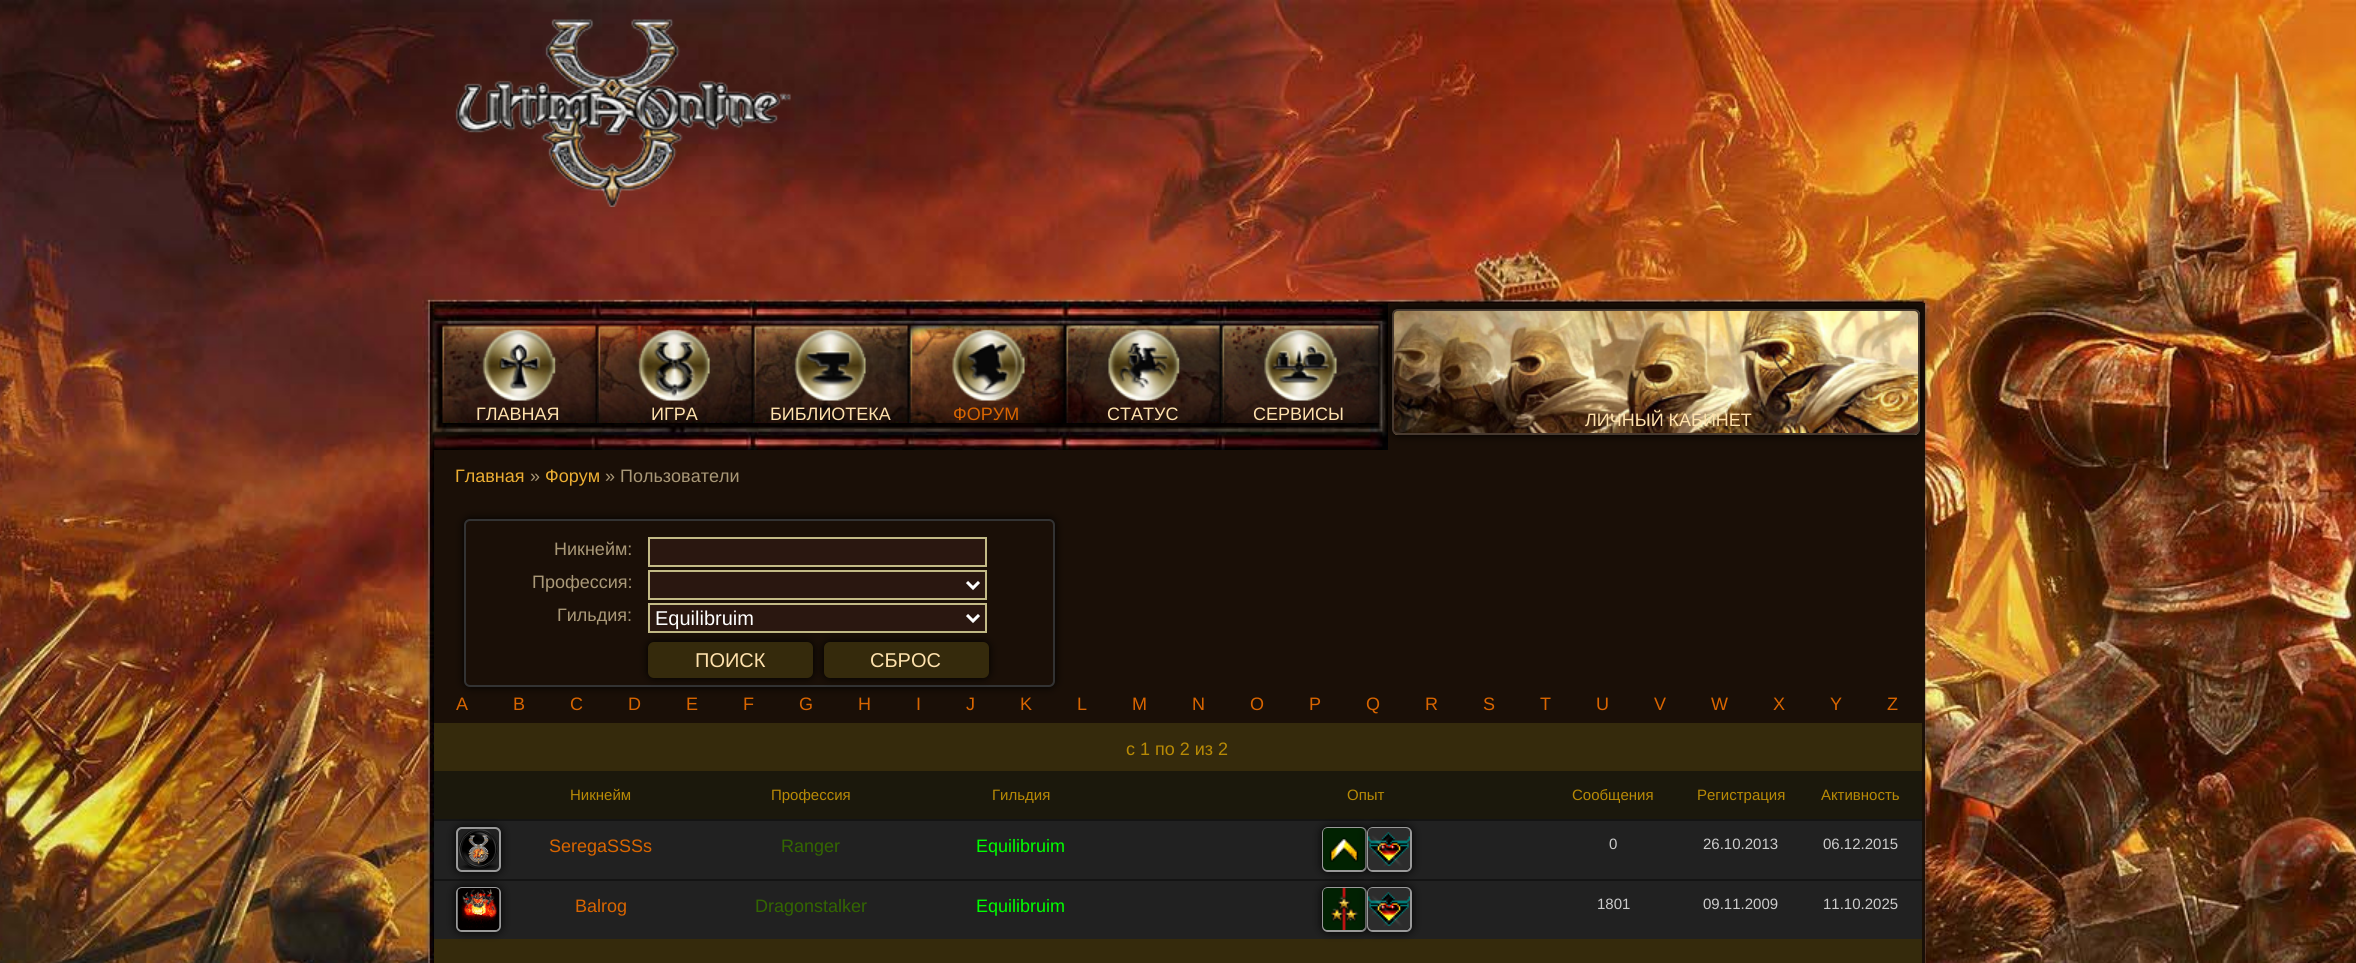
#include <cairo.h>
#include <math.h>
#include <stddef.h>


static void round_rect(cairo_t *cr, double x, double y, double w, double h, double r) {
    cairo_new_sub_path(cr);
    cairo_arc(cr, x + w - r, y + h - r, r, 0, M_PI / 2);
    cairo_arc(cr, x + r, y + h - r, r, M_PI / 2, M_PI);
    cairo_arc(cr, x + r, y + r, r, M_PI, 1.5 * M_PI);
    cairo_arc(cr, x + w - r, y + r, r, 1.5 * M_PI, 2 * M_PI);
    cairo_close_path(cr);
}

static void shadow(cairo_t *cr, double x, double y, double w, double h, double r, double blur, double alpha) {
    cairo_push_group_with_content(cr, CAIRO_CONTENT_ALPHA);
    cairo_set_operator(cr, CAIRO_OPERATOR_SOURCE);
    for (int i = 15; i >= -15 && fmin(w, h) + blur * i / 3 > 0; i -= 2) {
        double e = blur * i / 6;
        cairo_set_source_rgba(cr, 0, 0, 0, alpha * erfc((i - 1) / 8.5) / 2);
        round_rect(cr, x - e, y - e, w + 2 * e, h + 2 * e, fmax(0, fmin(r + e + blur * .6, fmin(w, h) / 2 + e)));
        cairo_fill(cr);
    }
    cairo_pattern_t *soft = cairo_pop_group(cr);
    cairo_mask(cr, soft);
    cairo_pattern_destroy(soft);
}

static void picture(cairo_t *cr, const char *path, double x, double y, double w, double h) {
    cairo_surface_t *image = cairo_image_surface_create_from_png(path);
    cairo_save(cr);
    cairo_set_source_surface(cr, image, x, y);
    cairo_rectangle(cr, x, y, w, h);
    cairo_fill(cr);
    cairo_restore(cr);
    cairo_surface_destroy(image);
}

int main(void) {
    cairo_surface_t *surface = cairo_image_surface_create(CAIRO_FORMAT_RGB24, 2356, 963);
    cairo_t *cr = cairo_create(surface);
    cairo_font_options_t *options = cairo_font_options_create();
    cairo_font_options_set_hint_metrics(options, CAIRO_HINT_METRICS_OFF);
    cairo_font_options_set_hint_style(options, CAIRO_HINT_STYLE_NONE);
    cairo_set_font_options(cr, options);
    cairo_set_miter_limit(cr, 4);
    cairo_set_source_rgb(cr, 1, 1, 1);
    cairo_paint(cr);
    picture(cr, "img1.png", 0, 0, 2356, 963);
    picture(cr, "img2.png", 455, 19, 336, 188);
    picture(cr, "img3.png", 442, 325, 157, 98);
    cairo_select_font_face(cr, "Liberation Sans", CAIRO_FONT_SLANT_NORMAL, CAIRO_FONT_WEIGHT_NORMAL);
    cairo_set_font_size(cr, 18);
    cairo_set_source_rgb(cr, 1, 0.886, 0.678);
    cairo_move_to(cr, 476, 420);
    cairo_show_text(cr, "ГЛАВНАЯ");
    picture(cr, "img4.png", 598, 325, 157, 98);
    cairo_move_to(cr, 651, 420);
    cairo_show_text(cr, "ИГРА");
    picture(cr, "img5.png", 754, 325, 157, 98);
    cairo_move_to(cr, 770, 420);
    cairo_show_text(cr, "БИБЛИОТЕКА");
    picture(cr, "img6.png", 910, 325, 157, 98);
    cairo_set_source_rgb(cr, 0.851, 0.396, 0);
    cairo_move_to(cr, 953, 420);
    cairo_show_text(cr, "ФОРУМ");
    picture(cr, "img7.png", 1066, 325, 157, 98);
    cairo_set_source_rgb(cr, 1, 0.886, 0.678);
    cairo_move_to(cr, 1107, 420);
    cairo_show_text(cr, "СТАТУС");
    picture(cr, "img8.png", 1222, 325, 157, 98);
    cairo_move_to(cr, 1253, 420);
    cairo_show_text(cr, "СЕРВИСЫ");
    cairo_set_source_rgb(cr, 0.102, 0.059, 0.031);
    cairo_rectangle(cr, 1388, 303, 537, 147);
    cairo_fill(cr);
    cairo_set_source_rgb(cr, 0, 0, 0);
    shadow(cr, 1392, 309, 528, 126, 6, 4.5, 1);
    picture(cr, "img9.png", 1393, 310, 527, 125);
    round_rect(cr, 1393, 310, 526, 124, 5);
    cairo_set_source_rgb(cr, 0.282, 0.227, 0.188);
    cairo_stroke(cr);
    cairo_set_source_rgb(cr, 1, 0.886, 0.678);
    cairo_move_to(cr, 1585, 426);
    cairo_show_text(cr, "ЛИЧНЫЙ КАБИНЕТ");
    cairo_set_source_rgb(cr, 0.102, 0.059, 0.031);
    cairo_rectangle(cr, 1922, 450, 3, 513);
    cairo_fill(cr);
    cairo_rectangle(cr, 434, 450, 1488, 273);
    cairo_fill(cr);
    cairo_set_source_rgb(cr, 0.925, 0.682, 0.2);
    cairo_move_to(cr, 455, 482);
    cairo_show_text(cr, "Главная");
    cairo_set_source_rgb(cr, 0.663, 0.596, 0.467);
    cairo_move_to(cr, 530, 482);
    cairo_show_text(cr, "»");
    cairo_set_source_rgb(cr, 0.925, 0.682, 0.2);
    cairo_move_to(cr, 545, 482);
    cairo_show_text(cr, "Форум");
    cairo_set_source_rgb(cr, 0.663, 0.596, 0.467);
    cairo_move_to(cr, 605, 482);
    cairo_show_text(cr, "» Пользователи");
    cairo_set_source_rgb(cr, 0, 0, 0);
    shadow(cr, 464, 519, 591, 168, 6, 4.5, 1);
    cairo_set_source_rgb(cr, 0.102, 0.059, 0.031);
    round_rect(cr, 465, 520, 589, 166, 5);
    cairo_fill_preserve(cr);
    cairo_set_source_rgb(cr, 0.2, 0.2, 0.2);
    cairo_stroke(cr);
    cairo_set_source_rgb(cr, 0.663, 0.596, 0.467);
    cairo_move_to(cr, 554, 555);
    cairo_show_text(cr, "Никнейм:");
    cairo_set_source_rgb(cr, 0.165, 0.09, 0.063);
    cairo_rectangle(cr, 649, 538, 337, 28);
    cairo_fill_preserve(cr);
    cairo_set_source_rgb(cr, 0.765, 0.729, 0.525);
    cairo_stroke(cr);
    cairo_set_source_rgb(cr, 0.663, 0.596, 0.467);
    cairo_move_to(cr, 532, 588);
    cairo_show_text(cr, "Профессия:");
    cairo_set_source_rgb(cr, 0.165, 0.09, 0.063);
    cairo_rectangle(cr, 649, 571, 337, 28);
    cairo_fill_preserve(cr);
    cairo_set_source_rgb(cr, 0.765, 0.729, 0.525);
    cairo_stroke(cr);
    cairo_new_path(cr);
    cairo_move_to(cr, 967, 582);
    cairo_line_to(cr, 973, 588);
    cairo_line_to(cr, 979, 582);
    cairo_set_source_rgb(cr, 1, 1, 1);
    cairo_set_line_width(cr, 3);
    cairo_stroke(cr);
    cairo_set_source_rgb(cr, 0.663, 0.596, 0.467);
    cairo_move_to(cr, 557, 621);
    cairo_show_text(cr, "Гильдия:");
    cairo_set_source_rgb(cr, 0.165, 0.09, 0.063);
    cairo_rectangle(cr, 649, 604, 337, 28);
    cairo_fill_preserve(cr);
    cairo_set_source_rgb(cr, 0.765, 0.729, 0.525);
    cairo_set_line_width(cr, 2);
    cairo_stroke(cr);
    cairo_new_path(cr);
    cairo_move_to(cr, 967, 615);
    cairo_line_to(cr, 973, 621);
    cairo_line_to(cr, 979, 615);
    cairo_set_source_rgb(cr, 1, 1, 1);
    cairo_set_line_width(cr, 3);
    cairo_stroke(cr);
    cairo_set_font_size(cr, 20);
    cairo_move_to(cr, 655, 625);
    cairo_show_text(cr, "Equilibruim");
    cairo_set_source_rgb(cr, 0, 0, 0);
    shadow(cr, 648, 642, 165, 36, 6, 4.5, 1);
    cairo_set_source_rgb(cr, 0.208, 0.165, 0.047);
    round_rect(cr, 648, 642, 165, 36, 6);
    cairo_fill(cr);
    cairo_set_source_rgb(cr, 1, 0.886, 0.678);
    cairo_move_to(cr, 695, 667);
    cairo_show_text(cr, "ПОИСК");
    cairo_set_source_rgb(cr, 0, 0, 0);
    shadow(cr, 824, 642, 165, 36, 6, 4.5, 1);
    cairo_set_source_rgb(cr, 0.208, 0.165, 0.047);
    round_rect(cr, 824, 642, 165, 36, 6);
    cairo_fill(cr);
    cairo_set_source_rgb(cr, 1, 0.886, 0.678);
    cairo_move_to(cr, 870, 667);
    cairo_show_text(cr, "СБРОС");
    cairo_set_font_size(cr, 18);
    cairo_set_source_rgb(cr, 0.851, 0.396, 0);
    cairo_move_to(cr, 456, 710);
    cairo_show_text(cr, "A");
    cairo_move_to(cr, 513, 710);
    cairo_show_text(cr, "B");
    cairo_move_to(cr, 570, 710);
    cairo_show_text(cr, "C");
    cairo_move_to(cr, 628, 710);
    cairo_show_text(cr, "D");
    cairo_move_to(cr, 686, 710);
    cairo_show_text(cr, "E");
    cairo_move_to(cr, 743, 710);
    cairo_show_text(cr, "F");
    cairo_move_to(cr, 799, 710);
    cairo_show_text(cr, "G");
    cairo_move_to(cr, 858, 710);
    cairo_show_text(cr, "H");
    cairo_move_to(cr, 916, 710);
    cairo_show_text(cr, "I");
    cairo_move_to(cr, 966, 710);
    cairo_show_text(cr, "J");
    cairo_move_to(cr, 1020, 710);
    cairo_show_text(cr, "K");
    cairo_move_to(cr, 1077, 710);
    cairo_show_text(cr, "L");
    cairo_move_to(cr, 1132, 710);
    cairo_show_text(cr, "M");
    cairo_move_to(cr, 1192, 710);
    cairo_show_text(cr, "N");
    cairo_move_to(cr, 1250, 710);
    cairo_show_text(cr, "O");
    cairo_move_to(cr, 1309, 710);
    cairo_show_text(cr, "P");
    cairo_move_to(cr, 1366, 710);
    cairo_show_text(cr, "Q");
    cairo_move_to(cr, 1425, 710);
    cairo_show_text(cr, "R");
    cairo_move_to(cr, 1483, 710);
    cairo_show_text(cr, "S");
    cairo_move_to(cr, 1540, 710);
    cairo_show_text(cr, "T");
    cairo_move_to(cr, 1596, 710);
    cairo_show_text(cr, "U");
    cairo_move_to(cr, 1654, 710);
    cairo_show_text(cr, "V");
    cairo_move_to(cr, 1711, 710);
    cairo_show_text(cr, "W");
    cairo_move_to(cr, 1773, 710);
    cairo_show_text(cr, "X");
    cairo_move_to(cr, 1830, 710);
    cairo_show_text(cr, "Y");
    cairo_move_to(cr, 1887, 710);
    cairo_show_text(cr, "Z");
    cairo_set_source_rgb(cr, 0.208, 0.165, 0.047);
    cairo_rectangle(cr, 434, 723, 1488, 48);
    cairo_fill(cr);
    cairo_set_source_rgb(cr, 0.722, 0.541, 0.02);
    cairo_move_to(cr, 1126, 755);
    cairo_show_text(cr, "c 1 по 2 из 2");
    cairo_set_source_rgb(cr, 0.106, 0.094, 0.047);
    cairo_rectangle(cr, 434, 771, 1488, 48);
    cairo_fill(cr);
    cairo_set_font_size(cr, 15);
    cairo_set_source_rgb(cr, 0.722, 0.541, 0.02);
    cairo_move_to(cr, 570, 800);
    cairo_show_text(cr, "Никнейм");
    cairo_move_to(cr, 771, 800);
    cairo_show_text(cr, "Профессия");
    cairo_move_to(cr, 992, 800);
    cairo_show_text(cr, "Гильдия");
    cairo_move_to(cr, 1347, 800);
    cairo_show_text(cr, "Опыт");
    cairo_move_to(cr, 1572, 800);
    cairo_show_text(cr, "Сообщения");
    cairo_move_to(cr, 1697, 800);
    cairo_show_text(cr, "Регистрация");
    cairo_move_to(cr, 1821, 800);
    cairo_show_text(cr, "Активность");
    cairo_set_source_rgb(cr, 0.129, 0.129, 0.129);
    cairo_rectangle(cr, 434, 821, 1488, 58);
    cairo_fill(cr);
    cairo_set_source_rgb(cr, 0.082, 0.082, 0.082);
    cairo_rectangle(cr, 434, 819, 1488, 2);
    cairo_fill(cr);
    cairo_set_source_rgb(cr, 0.129, 0.129, 0.129);
    cairo_rectangle(cr, 434, 881, 1488, 58);
    cairo_fill(cr);
    cairo_set_source_rgb(cr, 0.082, 0.082, 0.082);
    cairo_rectangle(cr, 434, 879, 1488, 2);
    cairo_fill(cr);
    cairo_save(cr);
    cairo_set_fill_rule(cr, CAIRO_FILL_RULE_EVEN_ODD);
    cairo_new_path(cr);
    cairo_move_to(cr, 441, 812);
    cairo_line_to(cr, 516, 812);
    cairo_line_to(cr, 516, 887);
    cairo_line_to(cr, 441, 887);
    cairo_close_path(cr);
    cairo_move_to(cr, 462, 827);
    cairo_line_to(cr, 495, 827);
    cairo_curve_to(cr, 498.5, 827, 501, 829.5, 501, 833);
    cairo_line_to(cr, 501, 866);
    cairo_curve_to(cr, 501, 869.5, 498.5, 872, 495, 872);
    cairo_line_to(cr, 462, 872);
    cairo_curve_to(cr, 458.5, 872, 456, 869.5, 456, 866);
    cairo_line_to(cr, 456, 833);
    cairo_curve_to(cr, 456, 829.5, 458.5, 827, 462, 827);
    cairo_close_path(cr);
    cairo_clip(cr);
    cairo_set_source_rgb(cr, 0, 0, 0);
    shadow(cr, 456, 827, 45, 45, 6, 4.5, 1);
    cairo_restore(cr);
    round_rect(cr, 457, 828, 43, 43, 5);
    cairo_set_source_rgb(cr, 0.6, 0.6, 0.6);
    cairo_set_line_width(cr, 2);
    cairo_stroke(cr);
    picture(cr, "img10.png", 458, 828, 41, 42);
    cairo_set_font_size(cr, 18);
    cairo_set_source_rgb(cr, 0.851, 0.396, 0);
    cairo_move_to(cr, 549, 852);
    cairo_show_text(cr, "SeregaSSSs");
    cairo_set_source_rgb(cr, 0.2, 0.4, 0);
    cairo_move_to(cr, 781, 852);
    cairo_show_text(cr, "Ranger");
    cairo_set_source_rgb(cr, 0, 1, 0);
    cairo_move_to(cr, 976, 852);
    cairo_show_text(cr, "Equilibruim");
    cairo_set_source_rgb(cr, 0, 0, 0);
    shadow(cr, 1322, 827, 45, 45, 6, 4.5, 1);
    round_rect(cr, 1323, 828, 43, 43, 5);
    cairo_set_source_rgb(cr, 0.6, 0.6, 0.6);
    cairo_stroke(cr);
    picture(cr, "img11.png", 1323, 828, 42, 42);
    cairo_set_source_rgb(cr, 0, 0, 0);
    shadow(cr, 1367, 827, 45, 45, 6, 4.5, 1);
    round_rect(cr, 1368, 828, 43, 43, 5);
    cairo_set_source_rgb(cr, 0.6, 0.6, 0.6);
    cairo_stroke(cr);
    picture(cr, "img12.png", 1368, 828, 42, 42);
    cairo_set_font_size(cr, 15);
    cairo_set_source_rgb(cr, 0.8, 0.8, 0.8);
    cairo_move_to(cr, 1609, 849);
    cairo_show_text(cr, "0");
    cairo_move_to(cr, 1703, 849);
    cairo_show_text(cr, "26.10.2013");
    cairo_move_to(cr, 1823, 849);
    cairo_show_text(cr, "06.12.2015");
    cairo_set_source_rgb(cr, 0.208, 0.165, 0.047);
    cairo_rectangle(cr, 434, 939, 1488, 24);
    cairo_fill(cr);
    cairo_set_source_rgb(cr, 0, 0, 0);
    shadow(cr, 456, 887, 45, 45, 6, 4.5, 1);
    round_rect(cr, 457, 888, 43, 43, 5);
    cairo_set_source_rgb(cr, 0.6, 0.6, 0.6);
    cairo_stroke(cr);
    picture(cr, "img13.png", 457, 888, 43, 42);
    cairo_set_font_size(cr, 18);
    cairo_set_source_rgb(cr, 0.851, 0.396, 0);
    cairo_move_to(cr, 575, 912);
    cairo_show_text(cr, "Balrog");
    cairo_set_source_rgb(cr, 0.2, 0.4, 0);
    cairo_move_to(cr, 755, 912);
    cairo_show_text(cr, "Dragonstalker");
    cairo_set_source_rgb(cr, 0, 1, 0);
    cairo_move_to(cr, 976, 912);
    cairo_show_text(cr, "Equilibruim");
    cairo_set_source_rgb(cr, 0, 0, 0);
    shadow(cr, 1322, 887, 45, 45, 6, 4.5, 1);
    round_rect(cr, 1323, 888, 43, 43, 5);
    cairo_set_source_rgb(cr, 0.6, 0.6, 0.6);
    cairo_stroke(cr);
    picture(cr, "img14.png", 1323, 888, 42, 42);
    cairo_set_source_rgb(cr, 0, 0, 0);
    shadow(cr, 1367, 887, 45, 45, 6, 4.5, 1);
    round_rect(cr, 1368, 888, 43, 43, 5);
    cairo_set_source_rgb(cr, 0.6, 0.6, 0.6);
    cairo_stroke(cr);
    picture(cr, "img12.png", 1368, 888, 42, 42);
    cairo_set_font_size(cr, 15);
    cairo_set_source_rgb(cr, 0.8, 0.8, 0.8);
    cairo_move_to(cr, 1597, 909);
    cairo_show_text(cr, "1801");
    cairo_move_to(cr, 1703, 909);
    cairo_show_text(cr, "09.11.2009");
    cairo_move_to(cr, 1823, 909);
    cairo_show_text(cr, "11.10.2025");
    cairo_surface_write_to_png(surface, "page.png");
    cairo_font_options_destroy(options);
    cairo_destroy(cr);
    cairo_surface_destroy(surface);
    return 0;
}
